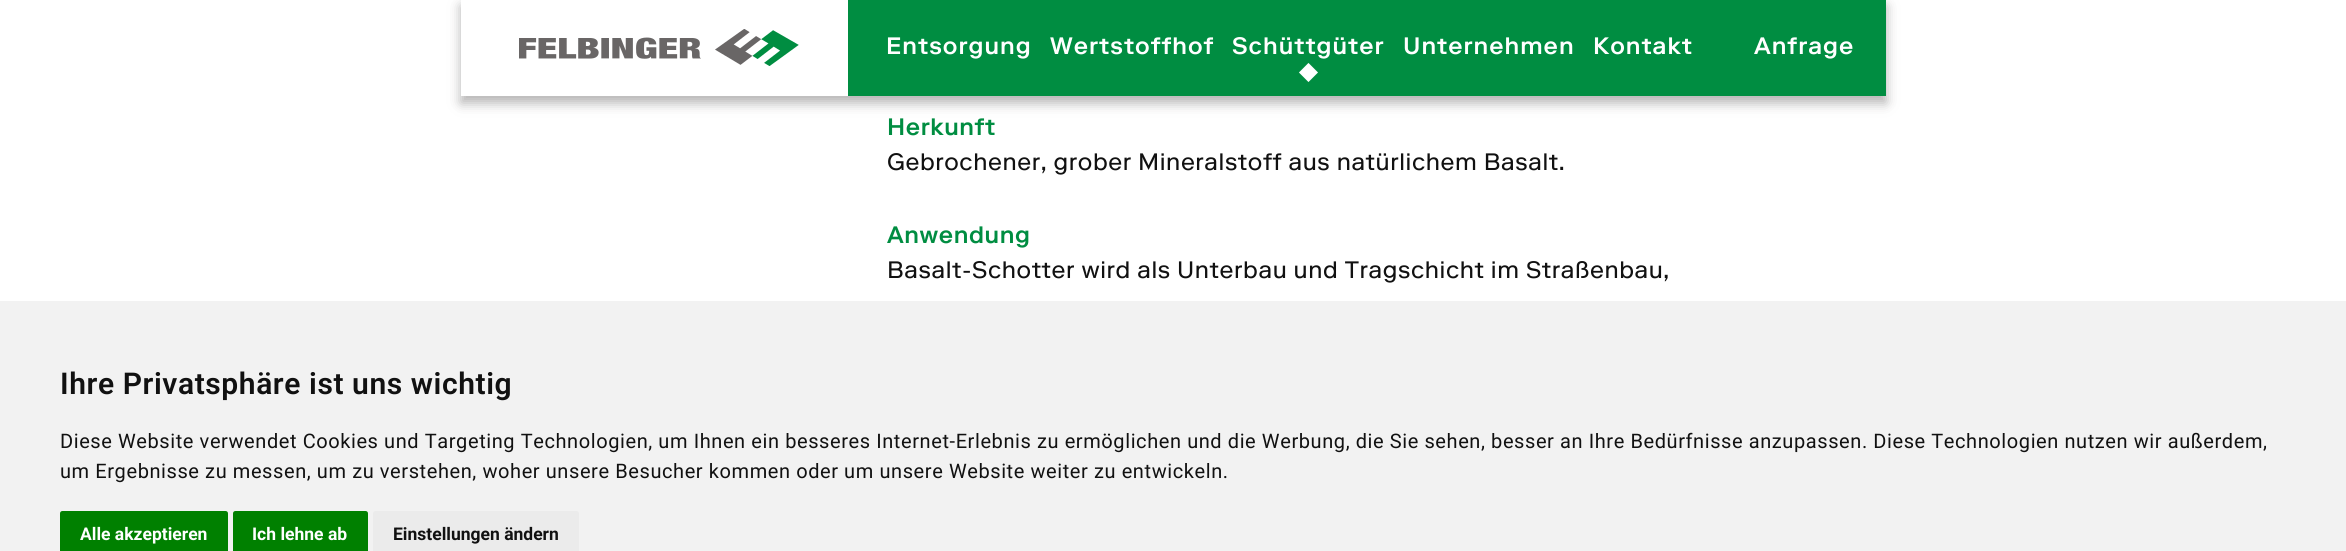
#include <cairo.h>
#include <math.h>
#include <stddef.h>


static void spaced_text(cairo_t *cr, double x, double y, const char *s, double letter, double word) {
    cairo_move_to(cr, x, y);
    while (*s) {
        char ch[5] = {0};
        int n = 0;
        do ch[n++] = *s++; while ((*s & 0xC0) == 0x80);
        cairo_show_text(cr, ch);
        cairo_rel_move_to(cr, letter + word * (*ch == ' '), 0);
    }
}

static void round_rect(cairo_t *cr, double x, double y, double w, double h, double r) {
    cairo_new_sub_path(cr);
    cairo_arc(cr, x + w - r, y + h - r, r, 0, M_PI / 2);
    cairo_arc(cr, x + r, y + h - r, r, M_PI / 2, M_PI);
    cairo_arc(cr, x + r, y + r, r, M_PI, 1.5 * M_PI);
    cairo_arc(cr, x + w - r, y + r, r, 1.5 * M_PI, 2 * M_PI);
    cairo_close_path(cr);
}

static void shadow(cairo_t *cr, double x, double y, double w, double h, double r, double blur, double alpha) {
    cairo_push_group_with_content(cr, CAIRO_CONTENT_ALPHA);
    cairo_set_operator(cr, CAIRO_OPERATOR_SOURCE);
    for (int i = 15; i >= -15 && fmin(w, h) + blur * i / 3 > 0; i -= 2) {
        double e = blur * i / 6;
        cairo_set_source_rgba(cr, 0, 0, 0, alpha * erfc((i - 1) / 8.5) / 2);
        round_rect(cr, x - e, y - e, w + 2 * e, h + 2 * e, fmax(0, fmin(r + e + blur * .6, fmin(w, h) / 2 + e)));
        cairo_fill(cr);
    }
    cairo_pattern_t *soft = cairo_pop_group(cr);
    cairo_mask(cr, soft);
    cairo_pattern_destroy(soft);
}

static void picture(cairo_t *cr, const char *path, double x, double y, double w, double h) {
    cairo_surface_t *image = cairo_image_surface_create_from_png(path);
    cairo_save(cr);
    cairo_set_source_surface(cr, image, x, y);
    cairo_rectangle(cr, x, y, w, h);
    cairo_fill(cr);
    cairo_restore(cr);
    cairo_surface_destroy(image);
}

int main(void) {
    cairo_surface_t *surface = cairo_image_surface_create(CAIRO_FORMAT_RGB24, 2346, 551);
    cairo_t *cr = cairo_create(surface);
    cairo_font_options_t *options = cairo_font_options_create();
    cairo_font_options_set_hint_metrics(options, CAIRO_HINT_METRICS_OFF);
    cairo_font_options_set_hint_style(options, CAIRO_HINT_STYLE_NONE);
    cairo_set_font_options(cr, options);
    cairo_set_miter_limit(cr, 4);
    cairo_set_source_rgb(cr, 1, 1, 1);
    cairo_paint(cr);
    cairo_set_source_rgb(cr, 0.412, 0.4, 0.4);
    shadow(cr, 461, 6, 1425, 97, 0, 6, 0.5);
    cairo_set_source_rgb(cr, 0, 0.553, 0.255);
    cairo_rectangle(cr, 848, 0, 1038, 96);
    cairo_fill(cr);
    cairo_set_source_rgb(cr, 1, 1, 1);
    cairo_rectangle(cr, 461, 0, 387, 96);
    cairo_fill(cr);
    picture(cr, "img1.png", 519, 29, 280, 37);
    cairo_select_font_face(cr, "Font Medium", CAIRO_FONT_SLANT_NORMAL, CAIRO_FONT_WEIGHT_NORMAL);
    cairo_set_font_size(cr, 23.75);
    spaced_text(cr, 886, 54, "Entsorgung", 1, 0);
    spaced_text(cr, 1050, 54, "Wertstoffhof", 1, 0);
    spaced_text(cr, 1232, 54, "Schüttgüter", 1, 0);
    cairo_select_font_face(cr, "DejaVu Sans", CAIRO_FONT_SLANT_NORMAL, CAIRO_FONT_WEIGHT_BOLD);
    spaced_text(cr, 1299, 79, "◆", 1, 0);
    cairo_select_font_face(cr, "Font Medium", CAIRO_FONT_SLANT_NORMAL, CAIRO_FONT_WEIGHT_NORMAL);
    spaced_text(cr, 1403, 54, "Unternehmen", 1, 0);
    spaced_text(cr, 1593, 54, "Kontakt", 1, 0);
    spaced_text(cr, 1754, 54, "Anfrage", 1, 0);
    cairo_set_source_rgb(cr, 0, 0.553, 0.255);
    spaced_text(cr, 887, 135, "Herkunft", 0.59, 0);
    cairo_select_font_face(cr, "Font", CAIRO_FONT_SLANT_NORMAL, CAIRO_FONT_WEIGHT_NORMAL);
    cairo_set_source_rgb(cr, 0.067, 0.067, 0.067);
    spaced_text(cr, 887, 170, "Gebrochener, grober Mineralstoff aus natürlichem Basalt.", 0.59, 0);
    cairo_select_font_face(cr, "Font Medium", CAIRO_FONT_SLANT_NORMAL, CAIRO_FONT_WEIGHT_NORMAL);
    cairo_set_source_rgb(cr, 0, 0.553, 0.255);
    spaced_text(cr, 887, 243, "Anwendung", 0.59, 0);
    cairo_select_font_face(cr, "Font", CAIRO_FONT_SLANT_NORMAL, CAIRO_FONT_WEIGHT_NORMAL);
    cairo_set_source_rgb(cr, 0.067, 0.067, 0.067);
    spaced_text(cr, 887, 278, "Basalt-Schotter wird als Unterbau und Tragschicht im Straßenbau,", 0.59, 0);
    cairo_set_source_rgb(cr, 0.949, 0.949, 0.949);
    cairo_rectangle(cr, 0, 301, 2346, 250);
    cairo_fill(cr);
    cairo_select_font_face(cr, "Roboto SemiBold", CAIRO_FONT_SLANT_NORMAL, CAIRO_FONT_WEIGHT_NORMAL);
    cairo_set_font_size(cr, 30);
    cairo_set_source_rgb(cr, 0.067, 0.067, 0.067);
    spaced_text(cr, 60, 394, "Ihre Privatsphäre ist uns wichtig", 0.59, 0);
    cairo_select_font_face(cr, "Roboto", CAIRO_FONT_SLANT_NORMAL, CAIRO_FONT_WEIGHT_NORMAL);
    cairo_set_font_size(cr, 20);
    spaced_text(cr, 60, 448, "Diese Website verwendet Cookies und Targeting Technologien, um Ihnen ein besseres Internet-Erlebnis zu ermöglichen und die Werbung, die Sie sehen, besser an Ihre Bedürfnisse anzupassen. Diese Technologien nutzen wir außerdem,", 0.59, 0);
    spaced_text(cr, 60, 478, "um Ergebnisse zu messen, um zu verstehen, woher unsere Besucher kommen oder um unsere Website weiter zu entwickeln.", 0.59, 0);
    cairo_set_source_rgb(cr, 0, 0.502, 0);
    cairo_new_path(cr);
    cairo_move_to(cr, 62.5, 511);
    cairo_line_to(cr, 225.5, 511);
    cairo_curve_to(cr, 227, 511, 228, 512, 228, 513.5);
    cairo_line_to(cr, 228, 551);
    cairo_line_to(cr, 60, 551);
    cairo_line_to(cr, 60, 513.5);
    cairo_curve_to(cr, 60, 512, 61, 511, 62.5, 511);
    cairo_close_path(cr);
    cairo_fill(cr);
    cairo_select_font_face(cr, "Roboto", CAIRO_FONT_SLANT_NORMAL, CAIRO_FONT_WEIGHT_BOLD);
    cairo_set_font_size(cr, 17.5);
    cairo_set_source_rgb(cr, 1, 1, 1);
    cairo_move_to(cr, 80, 540);
    cairo_show_text(cr, "Alle akzeptieren");
    cairo_set_source_rgb(cr, 0, 0.502, 0);
    cairo_new_path(cr);
    cairo_move_to(cr, 235.5, 511);
    cairo_line_to(cr, 365.5, 511);
    cairo_curve_to(cr, 367, 511, 368, 512, 368, 513.5);
    cairo_line_to(cr, 368, 551);
    cairo_line_to(cr, 233, 551);
    cairo_line_to(cr, 233, 513.5);
    cairo_curve_to(cr, 233, 512, 234, 511, 235.5, 511);
    cairo_close_path(cr);
    cairo_fill(cr);
    cairo_set_source_rgb(cr, 1, 1, 1);
    cairo_move_to(cr, 252, 540);
    cairo_show_text(cr, "Ich lehne ab");
    cairo_set_source_rgb(cr, 0.918, 0.918, 0.918);
    cairo_new_path(cr);
    cairo_move_to(cr, 375.5, 511);
    cairo_line_to(cr, 576.5, 511);
    cairo_curve_to(cr, 578, 511, 579, 512, 579, 513.5);
    cairo_line_to(cr, 579, 551);
    cairo_line_to(cr, 373, 551);
    cairo_line_to(cr, 373, 513.5);
    cairo_curve_to(cr, 373, 512, 374, 511, 375.5, 511);
    cairo_close_path(cr);
    cairo_fill(cr);
    cairo_set_source_rgb(cr, 0.067, 0.067, 0.067);
    cairo_move_to(cr, 393, 540);
    cairo_show_text(cr, "Einstellungen ändern");
    cairo_surface_write_to_png(surface, "page.png");
    cairo_font_options_destroy(options);
    cairo_destroy(cr);
    cairo_surface_destroy(surface);
    return 0;
}
